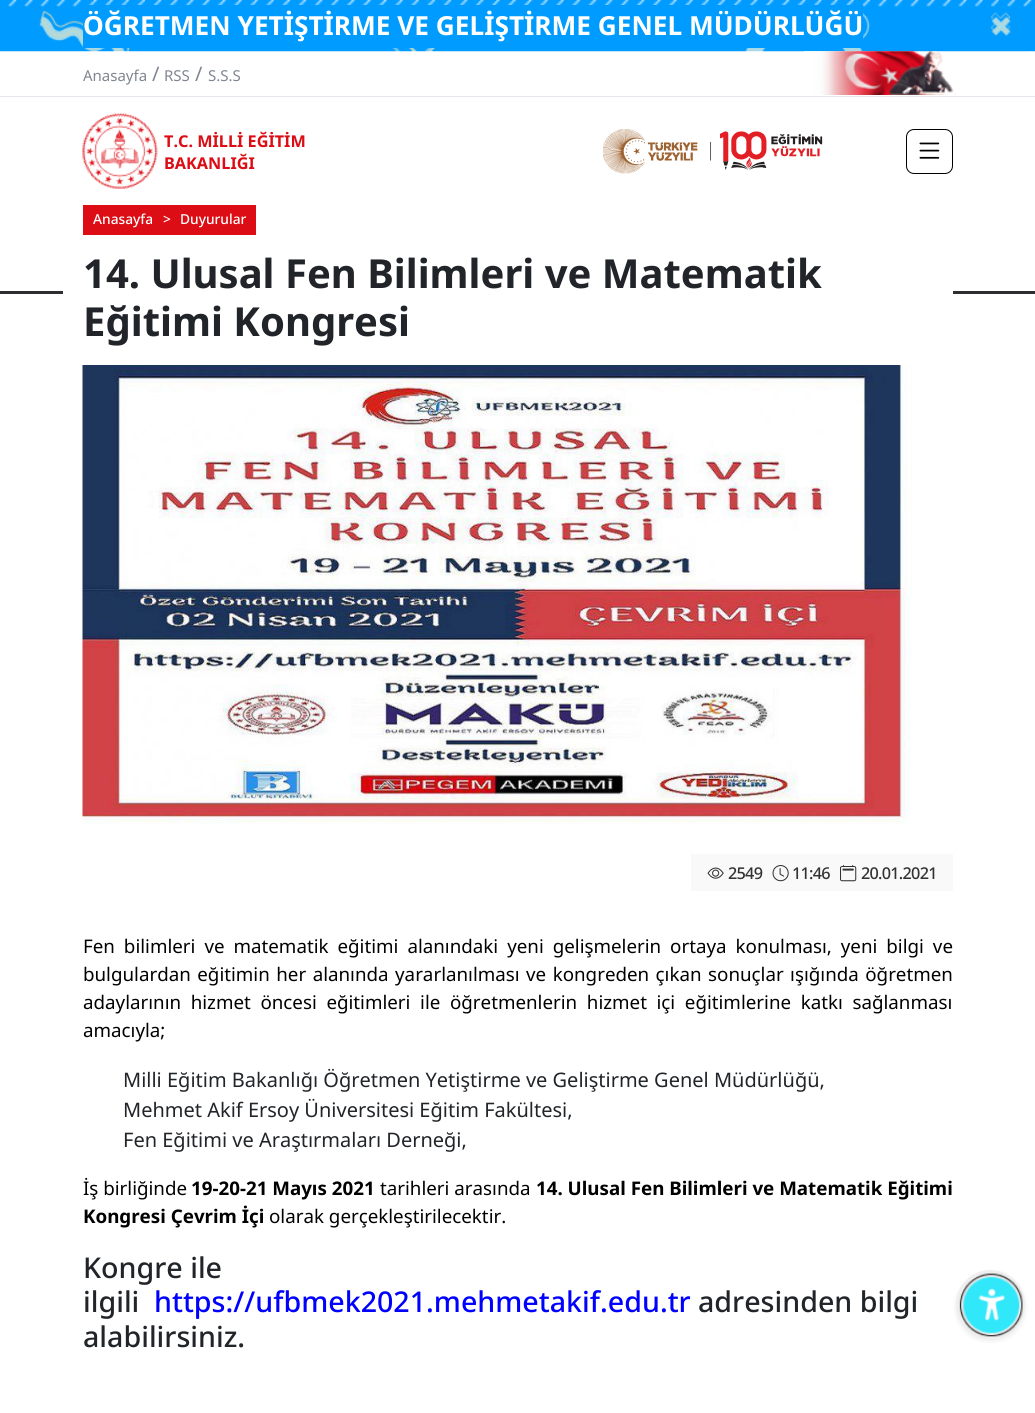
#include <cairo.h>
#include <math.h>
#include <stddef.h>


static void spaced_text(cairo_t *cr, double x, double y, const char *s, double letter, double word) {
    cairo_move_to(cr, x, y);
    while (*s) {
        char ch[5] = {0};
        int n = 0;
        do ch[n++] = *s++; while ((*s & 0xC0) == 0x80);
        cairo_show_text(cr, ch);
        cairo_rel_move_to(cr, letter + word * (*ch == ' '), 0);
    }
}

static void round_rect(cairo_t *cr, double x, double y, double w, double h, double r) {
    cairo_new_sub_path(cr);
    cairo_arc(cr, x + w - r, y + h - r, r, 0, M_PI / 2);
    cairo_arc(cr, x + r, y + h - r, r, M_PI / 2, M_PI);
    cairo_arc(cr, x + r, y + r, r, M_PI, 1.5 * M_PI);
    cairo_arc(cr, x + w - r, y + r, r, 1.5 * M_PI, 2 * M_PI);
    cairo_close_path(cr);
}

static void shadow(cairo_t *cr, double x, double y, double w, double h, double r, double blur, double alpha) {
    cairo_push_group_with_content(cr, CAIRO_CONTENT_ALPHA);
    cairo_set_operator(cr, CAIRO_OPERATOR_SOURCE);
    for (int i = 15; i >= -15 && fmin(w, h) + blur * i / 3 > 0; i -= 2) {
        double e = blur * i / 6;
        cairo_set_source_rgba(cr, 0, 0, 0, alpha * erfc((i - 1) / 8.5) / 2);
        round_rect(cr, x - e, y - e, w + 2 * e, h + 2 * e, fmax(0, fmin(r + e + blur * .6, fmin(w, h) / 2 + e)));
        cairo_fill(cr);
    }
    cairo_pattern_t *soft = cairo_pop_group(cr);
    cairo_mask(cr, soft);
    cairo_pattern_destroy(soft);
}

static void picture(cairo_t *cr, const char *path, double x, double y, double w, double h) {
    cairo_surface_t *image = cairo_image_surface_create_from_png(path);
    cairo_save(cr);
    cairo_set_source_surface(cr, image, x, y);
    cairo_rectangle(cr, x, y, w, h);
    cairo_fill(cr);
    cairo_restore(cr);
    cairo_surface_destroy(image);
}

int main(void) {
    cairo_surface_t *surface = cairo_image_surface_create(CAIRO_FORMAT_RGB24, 1035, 1413);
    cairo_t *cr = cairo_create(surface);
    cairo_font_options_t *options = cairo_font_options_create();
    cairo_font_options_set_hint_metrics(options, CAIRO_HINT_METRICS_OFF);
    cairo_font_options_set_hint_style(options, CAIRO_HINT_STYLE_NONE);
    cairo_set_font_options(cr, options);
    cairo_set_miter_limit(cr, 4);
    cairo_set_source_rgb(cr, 1, 1, 1);
    cairo_paint(cr);
    cairo_set_source_rgb(cr, 0, 0.608, 1);
    cairo_rectangle(cr, 0, 0, 1032, 51);
    cairo_fill(cr);
    picture(cr, "img1.png", 0, 0, 1035, 52);
    cairo_rectangle(cr, 83, 5, 780, 43);
    cairo_fill(cr);
    cairo_select_font_face(cr, "Noto Sans", CAIRO_FONT_SLANT_NORMAL, CAIRO_FONT_WEIGHT_BOLD);
    cairo_set_font_size(cr, 26.25);
    cairo_set_source_rgb(cr, 1, 1, 1);
    cairo_move_to(cr, 83, 35);
    cairo_show_text(cr, "ÖĞRETMEN YETİŞTİRME VE GELİŞTİRME GENEL MÜDÜRLÜĞÜ");
    cairo_set_source_rgb(cr, 0.898, 0.906, 0.922);
    cairo_rectangle(cr, 0, 96, 1035, 1);
    cairo_fill(cr);
    cairo_select_font_face(cr, "Noto Sans", CAIRO_FONT_SLANT_NORMAL, CAIRO_FONT_WEIGHT_NORMAL);
    cairo_set_font_size(cr, 15);
    cairo_set_source_rgb(cr, 0.498, 0.525, 0.565);
    cairo_move_to(cr, 83, 81);
    cairo_show_text(cr, "Anasayfa");
    cairo_set_font_size(cr, 20);
    cairo_move_to(cr, 152, 81);
    cairo_show_text(cr, "/");
    cairo_set_font_size(cr, 15);
    cairo_move_to(cr, 164, 81);
    cairo_show_text(cr, "RSS");
    cairo_set_font_size(cr, 20);
    cairo_move_to(cr, 195, 81);
    cairo_show_text(cr, "/");
    cairo_set_font_size(cr, 15);
    cairo_move_to(cr, 208, 81);
    cairo_show_text(cr, "S.S.S");
    picture(cr, "img2.png", 803, 51, 153, 44);
    picture(cr, "img3.png", 82, 113, 76, 76);
    cairo_select_font_face(cr, "Noto Sans", CAIRO_FONT_SLANT_NORMAL, CAIRO_FONT_WEIGHT_BOLD);
    cairo_set_font_size(cr, 16.25);
    cairo_set_source_rgb(cr, 0.863, 0.051, 0.082);
    cairo_move_to(cr, 164, 147);
    cairo_show_text(cr, "T.C. MİLLİ EĞİTİM");
    cairo_move_to(cr, 164, 169);
    cairo_show_text(cr, "BAKANLIĞI");
    picture(cr, "img4.png", 603, 129, 220, 45);
    round_rect(cr, 906.5, 129.5, 46, 44, 7.5);
    cairo_set_source_rgb(cr, 0, 0, 0);
    cairo_set_line_width(cr, 1);
    cairo_stroke(cr);
    picture(cr, "img5.png", 919, 142, 21, 17);
    cairo_set_source_rgb(cr, 0.863, 0.051, 0.082);
    cairo_rectangle(cr, 83, 205, 173, 30);
    cairo_fill(cr);
    cairo_select_font_face(cr, "Noto Sans Medium", CAIRO_FONT_SLANT_NORMAL, CAIRO_FONT_WEIGHT_NORMAL);
    cairo_set_font_size(cr, 13.75);
    cairo_set_source_rgb(cr, 1, 1, 1);
    cairo_move_to(cr, 93, 224);
    cairo_show_text(cr, "Anasayfa");
    cairo_move_to(cr, 163, 224);
    cairo_show_text(cr, ">");
    cairo_move_to(cr, 180, 224);
    cairo_show_text(cr, "Duyurular");
    cairo_set_source_rgb(cr, 0.18, 0.18, 0.188);
    cairo_rectangle(cr, 0, 291, 1035, 3);
    cairo_fill(cr);
    cairo_set_source_rgb(cr, 1, 1, 1);
    cairo_rectangle(cr, 63, 291, 890, 3);
    cairo_fill(cr);
    cairo_select_font_face(cr, "Noto Sans", CAIRO_FONT_SLANT_NORMAL, CAIRO_FONT_WEIGHT_BOLD);
    cairo_set_font_size(cr, 40);
    cairo_set_source_rgb(cr, 0.129, 0.145, 0.161);
    cairo_move_to(cr, 83, 288);
    cairo_show_text(cr, "14. Ulusal Fen Bilimleri ve Matematik");
    cairo_move_to(cr, 83, 336);
    cairo_show_text(cr, "Eğitimi Kongresi");
    picture(cr, "img6.png", 82, 365, 830, 459);
    cairo_set_source_rgb(cr, 0.973, 0.973, 0.973);
    cairo_rectangle(cr, 691, 854, 262, 37);
    cairo_fill(cr);
    picture(cr, "img7.png", 707, 867, 17, 12);
    cairo_select_font_face(cr, "Noto Sans Medium", CAIRO_FONT_SLANT_NORMAL, CAIRO_FONT_WEIGHT_NORMAL);
    cairo_set_font_size(cr, 16.25);
    cairo_set_source_rgb(cr, 0.2, 0.2, 0.2);
    spaced_text(cr, 728, 879, "2549", -0.75, 0);
    picture(cr, "img8.png", 772, 865, 17, 17);
    spaced_text(cr, 792, 879, "11:46", -0.75, 0);
    picture(cr, "img9.png", 840, 865, 17, 17);
    spaced_text(cr, 861, 879, "20.01.2021", -0.75, 0);
    cairo_select_font_face(cr, "Noto Sans", CAIRO_FONT_SLANT_NORMAL, CAIRO_FONT_WEIGHT_NORMAL);
    cairo_set_font_size(cr, 18.75);
    cairo_set_source_rgb(cr, 0, 0, 0);
    spaced_text(cr, 83, 953, "Fen bilimleri ve matematik eğitimi alanındaki yeni gelişmelerin ortaya konulması, yeni bilgi ve", 0, 4.1);
    spaced_text(cr, 83, 981, "bulgulardan eğitimin her alanında yararlanılması ve kongreden çıkan sonuçlar ışığında öğretmen", 0, 1.6);
    spaced_text(cr, 83, 1009, "adaylarının hizmet öncesi eğitimleri ile öğretmenlerin hizmet içi eğitimlerine katkı sağlanması", 0, 4.75);
    cairo_move_to(cr, 83, 1037);
    cairo_show_text(cr, "amacıyla;");
    cairo_set_font_size(cr, 20);
    cairo_set_source_rgb(cr, 0.129, 0.145, 0.161);
    cairo_move_to(cr, 123, 1087);
    cairo_show_text(cr, "Milli Eğitim Bakanlığı Öğretmen Yetiştirme ve Geliştirme Genel Müdürlüğü,");
    cairo_move_to(cr, 123, 1117);
    cairo_show_text(cr, "Mehmet Akif Ersoy Üniversitesi Eğitim Fakültesi,");
    cairo_move_to(cr, 123, 1147);
    cairo_show_text(cr, "Fen Eğitimi ve Araştırmaları Derneği,");
    cairo_set_font_size(cr, 18.75);
    cairo_set_source_rgb(cr, 0, 0, 0);
    cairo_move_to(cr, 83, 1195);
    cairo_show_text(cr, "İş birliğinde");
    cairo_select_font_face(cr, "Noto Sans", CAIRO_FONT_SLANT_NORMAL, CAIRO_FONT_WEIGHT_BOLD);
    cairo_move_to(cr, 191, 1195);
    cairo_show_text(cr, "19-20-21 Mayıs 2021");
    cairo_select_font_face(cr, "Noto Sans", CAIRO_FONT_SLANT_NORMAL, CAIRO_FONT_WEIGHT_NORMAL);
    cairo_move_to(cr, 380, 1195);
    cairo_show_text(cr, "tarihleri arasında");
    cairo_select_font_face(cr, "Noto Sans", CAIRO_FONT_SLANT_NORMAL, CAIRO_FONT_WEIGHT_BOLD);
    cairo_move_to(cr, 536, 1195);
    cairo_show_text(cr, "14. Ulusal Fen Bilimleri ve Matematik Eğitimi");
    cairo_move_to(cr, 83, 1223);
    cairo_show_text(cr, "Kongresi Çevrim İçi");
    cairo_select_font_face(cr, "Noto Sans", CAIRO_FONT_SLANT_NORMAL, CAIRO_FONT_WEIGHT_NORMAL);
    cairo_move_to(cr, 269, 1223);
    cairo_show_text(cr, "olarak gerçekleştirilecektir.");
    cairo_select_font_face(cr, "Noto Sans Medium", CAIRO_FONT_SLANT_NORMAL, CAIRO_FONT_WEIGHT_NORMAL);
    cairo_set_font_size(cr, 28.6);
    cairo_set_source_rgb(cr, 0.129, 0.145, 0.161);
    cairo_move_to(cr, 83, 1278);
    cairo_show_text(cr, "Kongre ile");
    cairo_move_to(cr, 83, 1312);
    cairo_show_text(cr, "ilgili");
    cairo_set_source_rgb(cr, 0, 0, 1);
    cairo_move_to(cr, 154, 1312);
    cairo_show_text(cr, "https://ufbmek2021.mehmetakif.edu.tr");
    cairo_set_source_rgb(cr, 0.129, 0.145, 0.161);
    cairo_move_to(cr, 698, 1312);
    cairo_show_text(cr, "adresinden bilgi");
    cairo_move_to(cr, 83, 1347);
    cairo_show_text(cr, "alabilirsiniz.");
    cairo_set_source_rgb(cr, 0, 0, 0);
    shadow(cr, 956, 1273, 69, 68, 34, 2.5, 0.08);
    cairo_set_source_rgb(cr, 0.937, 0.937, 0.937);
    cairo_arc(cr, 990.5, 1304.5, 34.5, 0, 2 * M_PI);
    cairo_fill(cr);
    picture(cr, "img10.png", 959, 1273, 64, 64);
    cairo_surface_write_to_png(surface, "page.png");
    cairo_font_options_destroy(options);
    cairo_destroy(cr);
    cairo_surface_destroy(surface);
    return 0;
}
